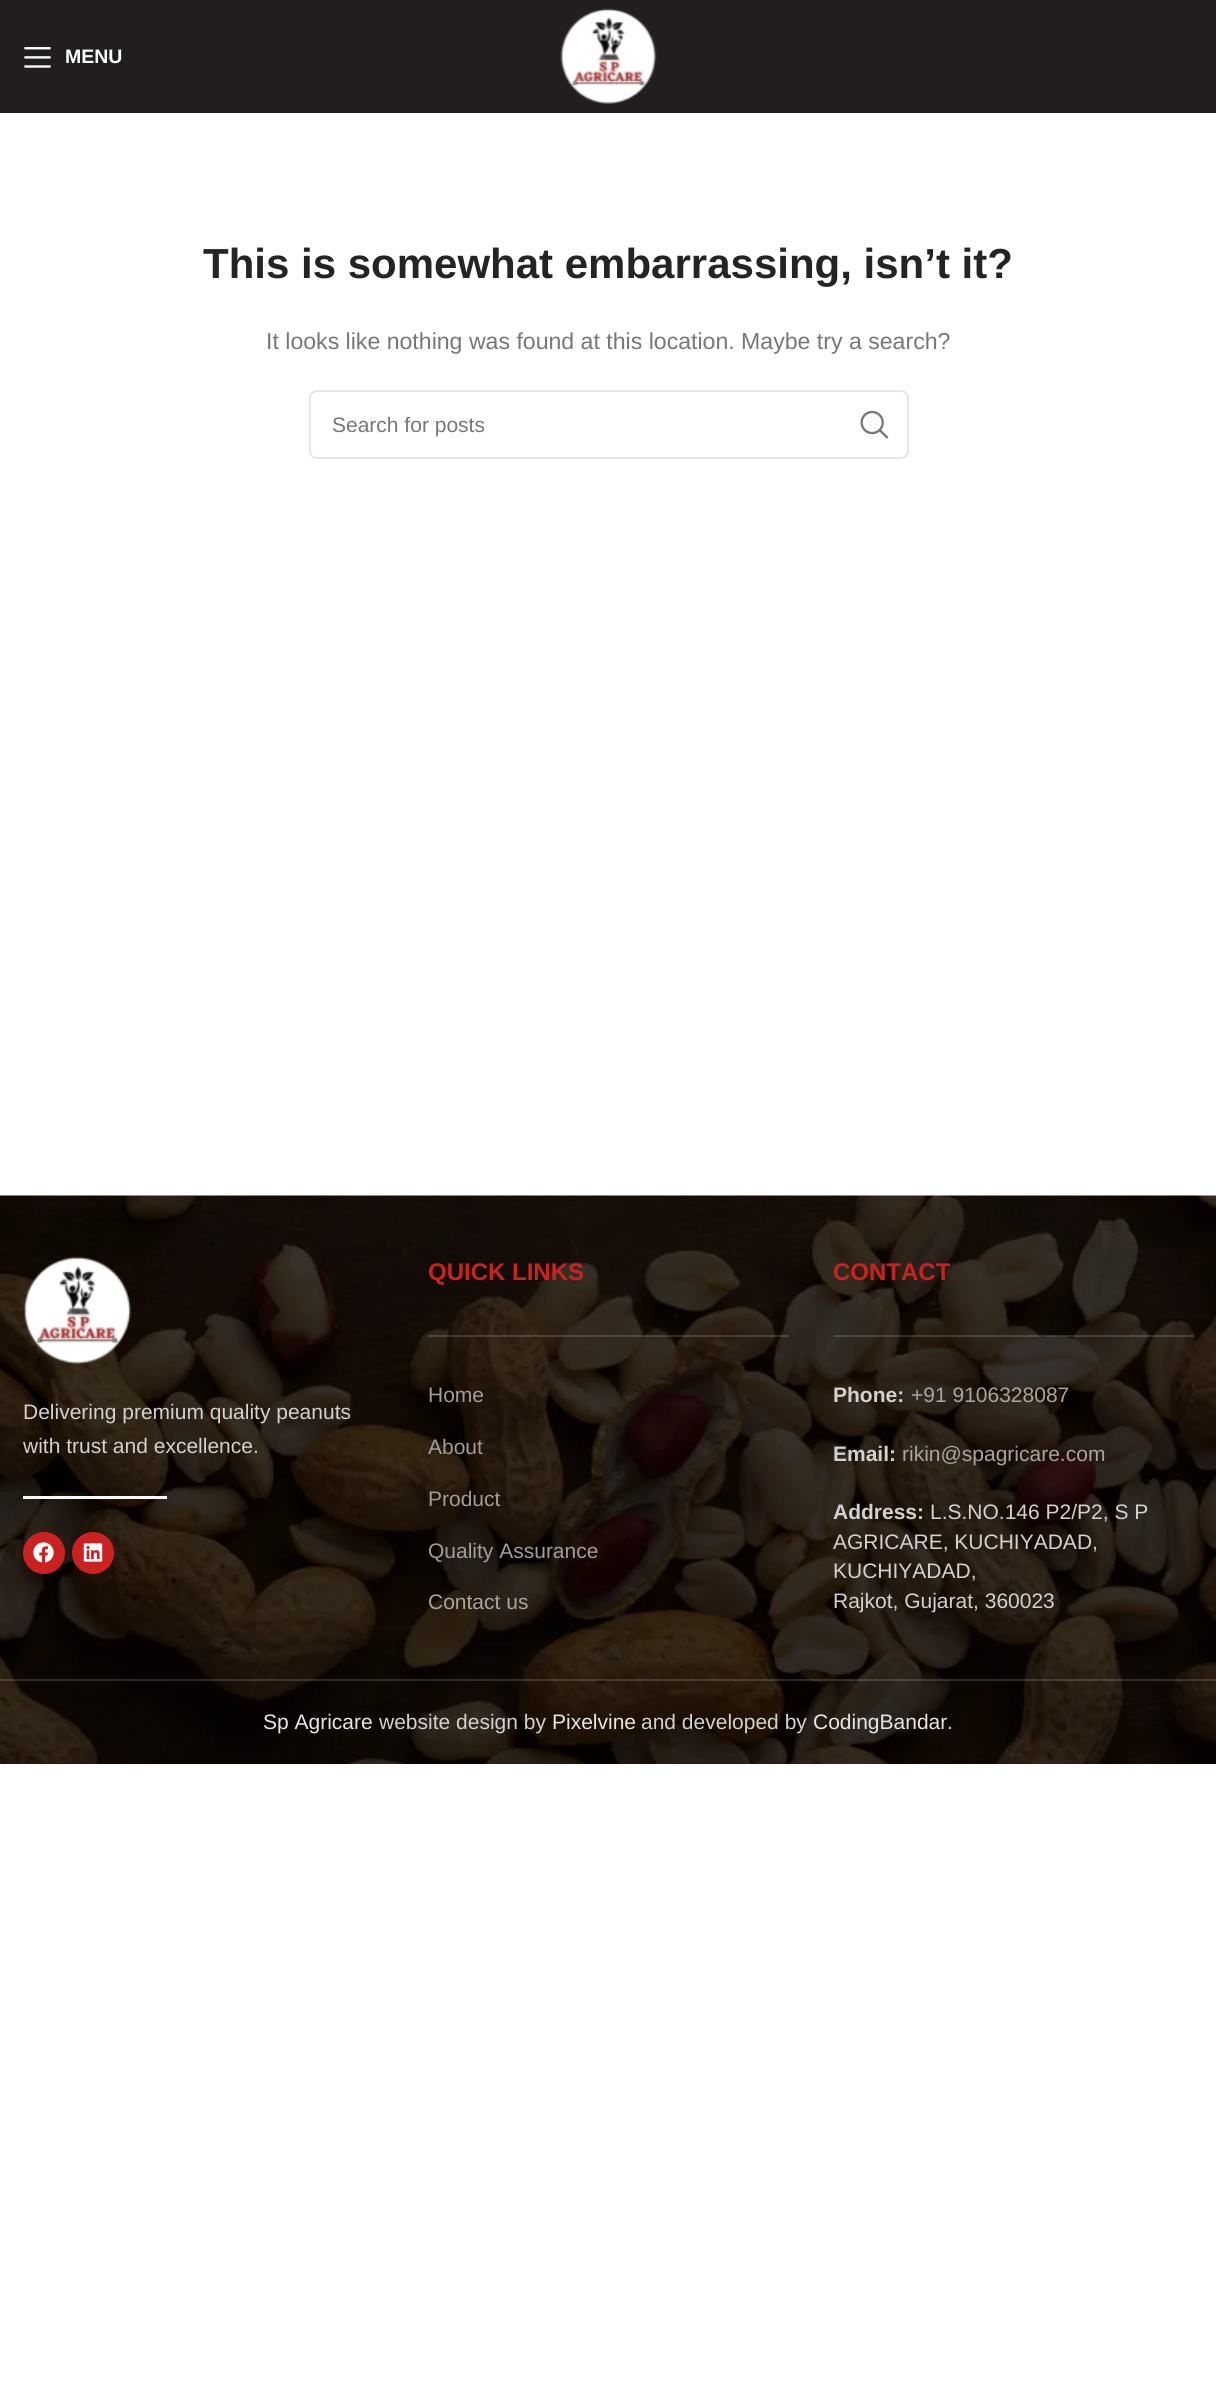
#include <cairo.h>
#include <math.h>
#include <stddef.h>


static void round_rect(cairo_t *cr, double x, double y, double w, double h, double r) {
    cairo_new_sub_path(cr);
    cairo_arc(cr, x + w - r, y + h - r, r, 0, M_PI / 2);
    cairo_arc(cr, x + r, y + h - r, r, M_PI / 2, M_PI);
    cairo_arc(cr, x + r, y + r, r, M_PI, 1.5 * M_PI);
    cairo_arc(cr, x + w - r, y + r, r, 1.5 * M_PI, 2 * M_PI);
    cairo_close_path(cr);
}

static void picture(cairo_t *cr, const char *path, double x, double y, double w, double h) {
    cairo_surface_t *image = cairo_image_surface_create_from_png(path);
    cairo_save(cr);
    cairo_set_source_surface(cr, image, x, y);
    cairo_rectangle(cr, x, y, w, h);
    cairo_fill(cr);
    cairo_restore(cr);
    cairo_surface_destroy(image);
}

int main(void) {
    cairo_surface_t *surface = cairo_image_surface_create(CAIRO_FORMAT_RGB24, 1216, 2390);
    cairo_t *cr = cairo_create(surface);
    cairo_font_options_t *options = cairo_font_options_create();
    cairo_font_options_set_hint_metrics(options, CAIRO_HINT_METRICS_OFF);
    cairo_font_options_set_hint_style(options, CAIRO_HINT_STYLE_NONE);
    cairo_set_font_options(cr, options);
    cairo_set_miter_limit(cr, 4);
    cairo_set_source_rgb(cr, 1, 1, 1);
    cairo_paint(cr);
    cairo_set_source_rgb(cr, 0.133, 0.118, 0.122);
    cairo_rectangle(cr, 0, 0, 1216, 113);
    cairo_fill(cr);
    picture(cr, "img1.png", 24, 47, 27, 21);
    cairo_select_font_face(cr, "Liberation Sans", CAIRO_FONT_SLANT_NORMAL, CAIRO_FONT_WEIGHT_BOLD);
    cairo_set_font_size(cr, 19.5);
    cairo_set_source_rgb(cr, 1, 1, 1);
    cairo_move_to(cr, 65, 63);
    cairo_show_text(cr, "MENU");
    picture(cr, "img2.png", 560, 8, 97, 96);
    cairo_set_font_size(cr, 42);
    cairo_set_source_rgb(cr, 0.141, 0.141, 0.141);
    cairo_move_to(cr, 203, 278);
    cairo_show_text(cr, "This is somewhat embarrassing, isn’t it?");
    cairo_select_font_face(cr, "Liberation Sans", CAIRO_FONT_SLANT_NORMAL, CAIRO_FONT_WEIGHT_NORMAL);
    cairo_set_font_size(cr, 23.1);
    cairo_set_source_rgb(cr, 0.467, 0.467, 0.467);
    cairo_move_to(cr, 266, 349);
    cairo_show_text(cr, "It looks like nothing was found at this location. Maybe try a search?");
    round_rect(cr, 310, 391, 598, 67, 7);
    cairo_set_source_rgb(cr, 0.902, 0.902, 0.902);
    cairo_stroke(cr);
    cairo_set_font_size(cr, 21);
    cairo_set_source_rgb(cr, 0.467, 0.467, 0.467);
    cairo_move_to(cr, 332, 432);
    cairo_show_text(cr, "Search for posts");
    picture(cr, "img3.png", 860, 410, 29, 29);
    picture(cr, "img4.png", 0, 1195, 1216, 569);
    picture(cr, "img5.png", 23, 1256, 108, 108);
    cairo_set_source_rgb(cr, 0.827, 0.82, 0.812);
    cairo_move_to(cr, 23, 1419);
    cairo_show_text(cr, "Delivering premium quality peanuts");
    cairo_move_to(cr, 23, 1453);
    cairo_show_text(cr, "with trust and excellence.");
    cairo_set_source_rgb(cr, 0.976, 0.976, 0.976);
    cairo_rectangle(cr, 23, 1496, 144, 3);
    cairo_fill(cr);
    cairo_set_source_rgb(cr, 0.796, 0.133, 0.129);
    cairo_arc(cr, 44, 1553, 21, 0, 2 * M_PI);
    cairo_fill(cr);
    picture(cr, "img6.png", 33, 1542, 21, 21);
    cairo_arc(cr, 93, 1553, 21, 0, 2 * M_PI);
    cairo_fill(cr);
    picture(cr, "img7.png", 83, 1543, 20, 19);
    cairo_set_source_rgba(cr, 1, 1, 1, 0.15);
    cairo_rectangle(cr, 428, 1335, 361, 2);
    cairo_fill(cr);
    cairo_select_font_face(cr, "Liberation Sans", CAIRO_FONT_SLANT_NORMAL, CAIRO_FONT_WEIGHT_BOLD);
    cairo_set_font_size(cr, 24);
    cairo_set_source_rgb(cr, 0.796, 0.133, 0.129);
    cairo_move_to(cr, 428, 1280);
    cairo_show_text(cr, "QUICK LINKS");
    cairo_select_font_face(cr, "Liberation Sans", CAIRO_FONT_SLANT_NORMAL, CAIRO_FONT_WEIGHT_NORMAL);
    cairo_set_font_size(cr, 21);
    cairo_set_source_rgb(cr, 0.631, 0.616, 0.608);
    cairo_move_to(cr, 428, 1402);
    cairo_show_text(cr, "Home");
    cairo_move_to(cr, 428, 1454);
    cairo_show_text(cr, "About");
    cairo_move_to(cr, 428, 1506);
    cairo_show_text(cr, "Product");
    cairo_move_to(cr, 428, 1558);
    cairo_show_text(cr, "Quality Assurance");
    cairo_set_source_rgb(cr, 0.659, 0.643, 0.627);
    cairo_move_to(cr, 428, 1609);
    cairo_show_text(cr, "Contact us");
    cairo_set_source_rgba(cr, 1, 1, 1, 0.15);
    cairo_rectangle(cr, 834, 1335, 360, 2);
    cairo_fill(cr);
    cairo_select_font_face(cr, "Liberation Sans", CAIRO_FONT_SLANT_NORMAL, CAIRO_FONT_WEIGHT_BOLD);
    cairo_set_font_size(cr, 24);
    cairo_set_source_rgb(cr, 0.796, 0.133, 0.129);
    cairo_move_to(cr, 833, 1280);
    cairo_show_text(cr, "CONTACT");
    cairo_set_font_size(cr, 21);
    cairo_set_source_rgb(cr, 0.827, 0.82, 0.812);
    cairo_move_to(cr, 833, 1402);
    cairo_show_text(cr, "Phone:");
    cairo_select_font_face(cr, "Liberation Sans", CAIRO_FONT_SLANT_NORMAL, CAIRO_FONT_WEIGHT_NORMAL);
    cairo_set_source_rgb(cr, 0.659, 0.643, 0.627);
    cairo_move_to(cr, 911, 1402);
    cairo_show_text(cr, "+91 9106328087");
    cairo_select_font_face(cr, "Liberation Sans", CAIRO_FONT_SLANT_NORMAL, CAIRO_FONT_WEIGHT_BOLD);
    cairo_set_source_rgb(cr, 0.827, 0.82, 0.812);
    cairo_move_to(cr, 833, 1461);
    cairo_show_text(cr, "Email:");
    cairo_select_font_face(cr, "Liberation Sans", CAIRO_FONT_SLANT_NORMAL, CAIRO_FONT_WEIGHT_NORMAL);
    cairo_set_source_rgb(cr, 0.659, 0.643, 0.627);
    cairo_move_to(cr, 902, 1461);
    cairo_show_text(cr, "rikin@spagricare.com");
    cairo_select_font_face(cr, "Liberation Sans", CAIRO_FONT_SLANT_NORMAL, CAIRO_FONT_WEIGHT_BOLD);
    cairo_set_source_rgb(cr, 0.827, 0.82, 0.812);
    cairo_move_to(cr, 833, 1519);
    cairo_show_text(cr, "Address:");
    cairo_select_font_face(cr, "Liberation Sans", CAIRO_FONT_SLANT_NORMAL, CAIRO_FONT_WEIGHT_NORMAL);
    cairo_move_to(cr, 930, 1519);
    cairo_show_text(cr, "L.S.NO.146 P2/P2, S P");
    cairo_move_to(cr, 833, 1549);
    cairo_show_text(cr, "AGRICARE, KUCHIYADAD,");
    cairo_move_to(cr, 833, 1578);
    cairo_show_text(cr, "KUCHIYADAD,");
    cairo_move_to(cr, 833, 1608);
    cairo_show_text(cr, "Rajkot, Gujarat, 360023");
    cairo_set_source_rgba(cr, 1, 1, 1, 0.15);
    cairo_rectangle(cr, 0, 1679, 1216, 2);
    cairo_fill(cr);
    cairo_set_source_rgb(cr, 0.906, 0.902, 0.902);
    cairo_move_to(cr, 263, 1729);
    cairo_show_text(cr, "Sp Agricare");
    cairo_set_source_rgb(cr, 0.827, 0.82, 0.812);
    cairo_move_to(cr, 379, 1729);
    cairo_show_text(cr, "website design by");
    cairo_set_source_rgb(cr, 0.906, 0.902, 0.902);
    cairo_move_to(cr, 552, 1729);
    cairo_show_text(cr, "Pixelvine");
    cairo_set_source_rgb(cr, 0.827, 0.82, 0.812);
    cairo_move_to(cr, 641, 1729);
    cairo_show_text(cr, "and developed by");
    cairo_set_source_rgb(cr, 0.906, 0.902, 0.902);
    cairo_move_to(cr, 813, 1729);
    cairo_show_text(cr, "CodingBandar");
    cairo_set_source_rgb(cr, 0.827, 0.82, 0.812);
    cairo_move_to(cr, 947, 1729);
    cairo_show_text(cr, ".");
    cairo_surface_write_to_png(surface, "page.png");
    cairo_font_options_destroy(options);
    cairo_destroy(cr);
    cairo_surface_destroy(surface);
    return 0;
}
